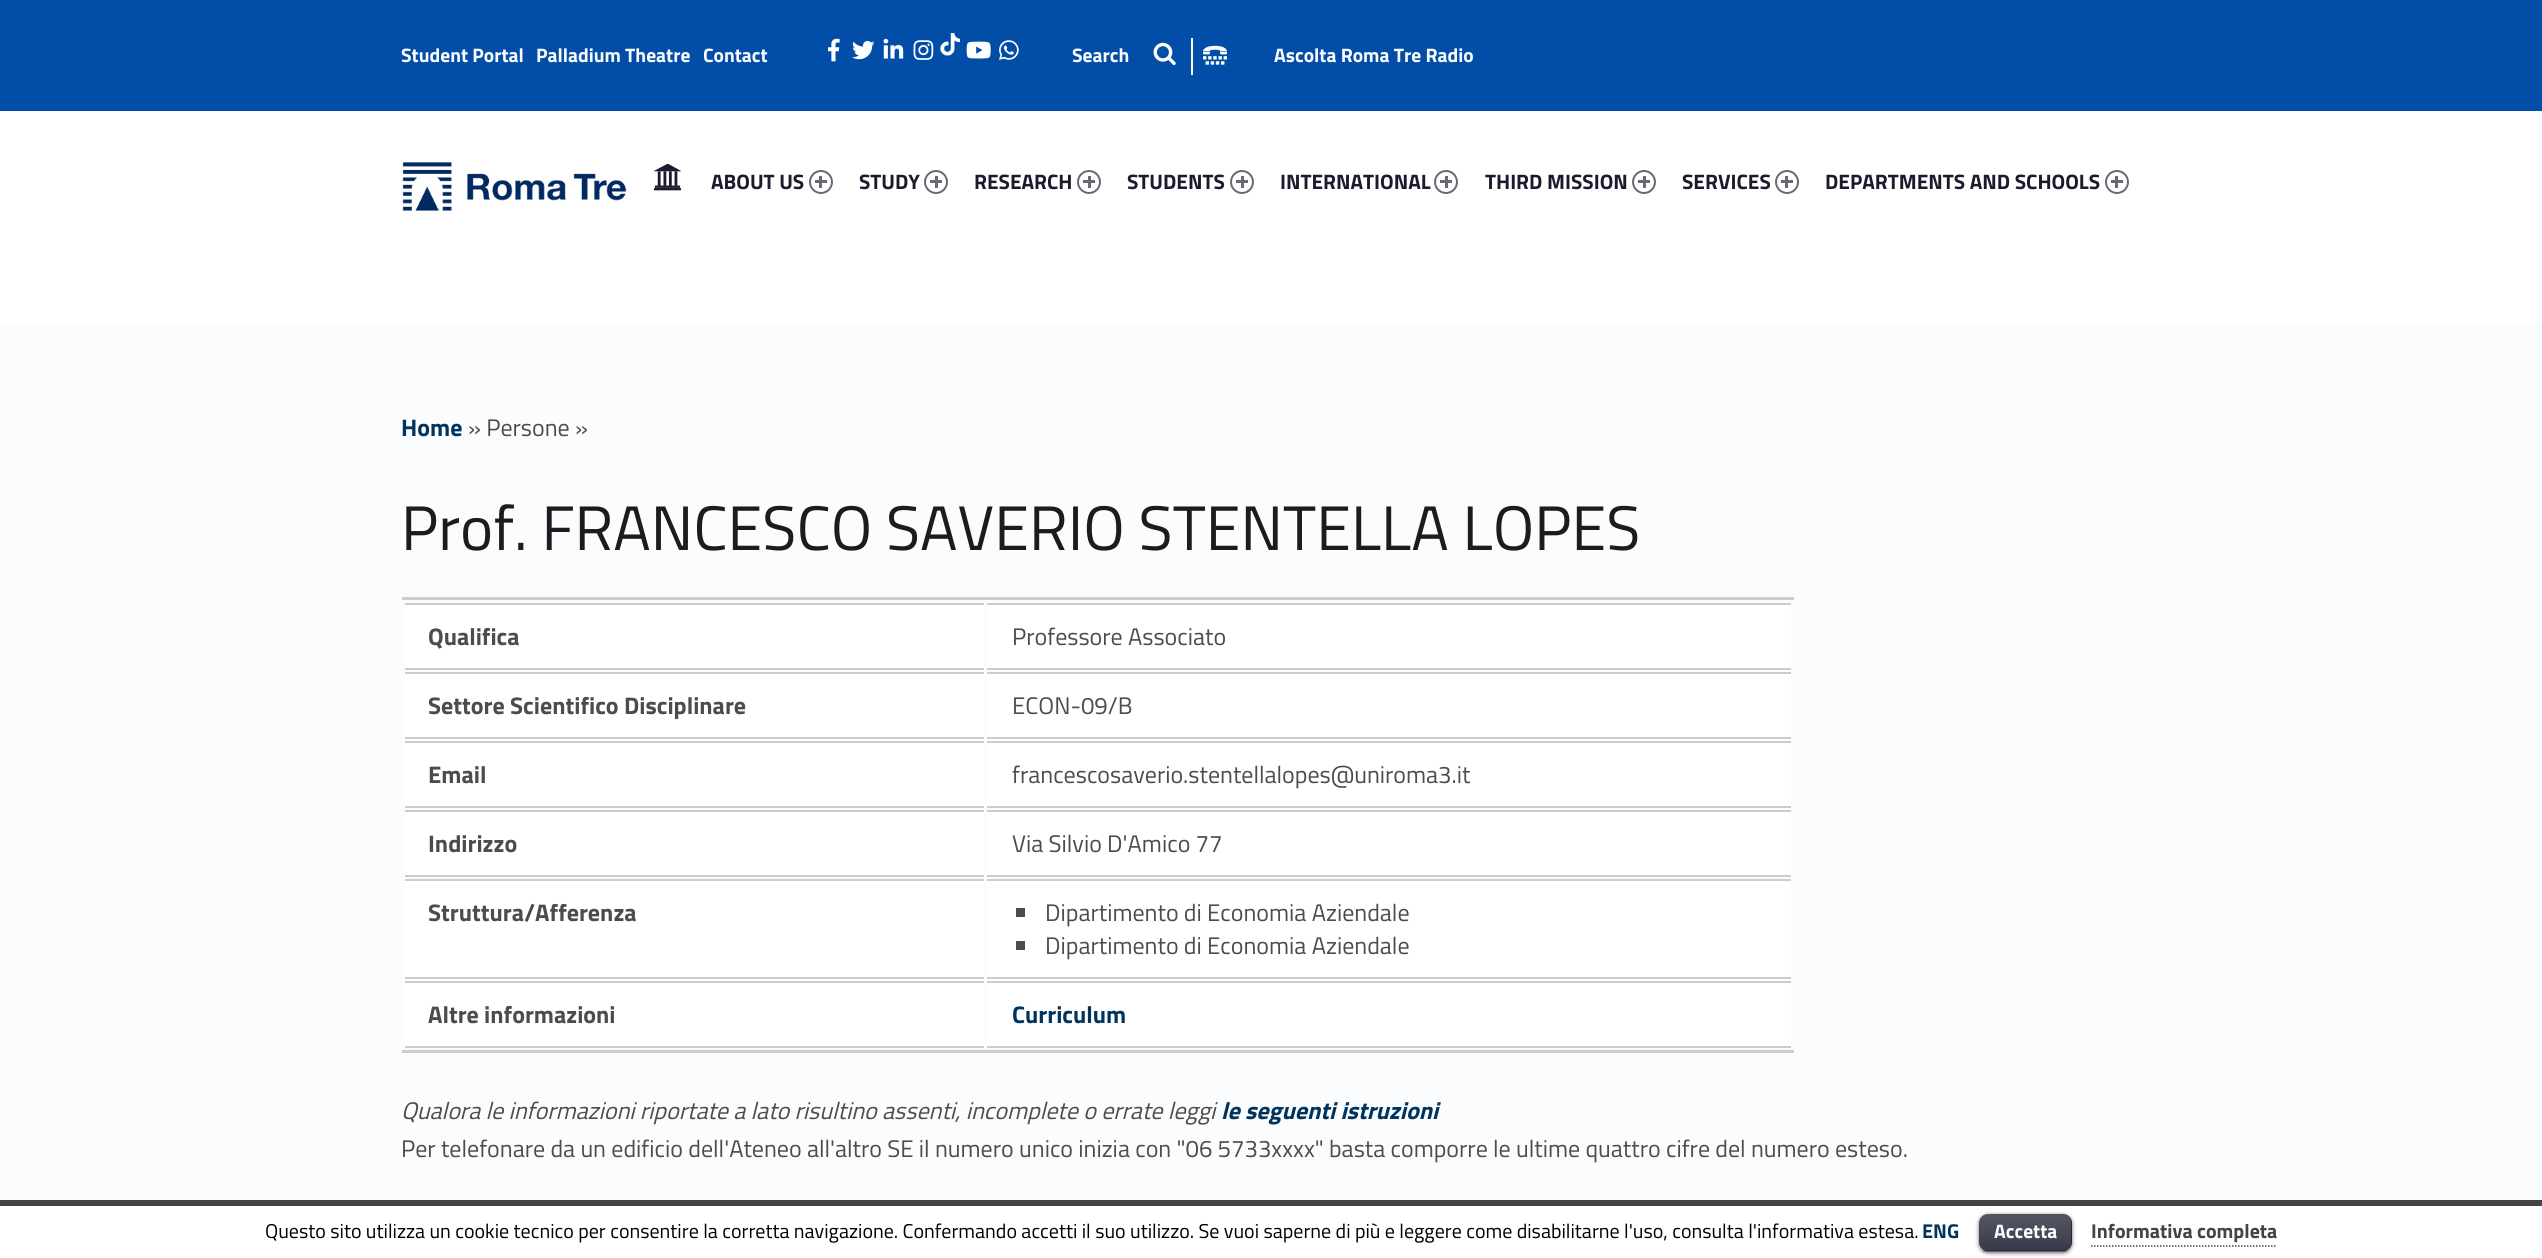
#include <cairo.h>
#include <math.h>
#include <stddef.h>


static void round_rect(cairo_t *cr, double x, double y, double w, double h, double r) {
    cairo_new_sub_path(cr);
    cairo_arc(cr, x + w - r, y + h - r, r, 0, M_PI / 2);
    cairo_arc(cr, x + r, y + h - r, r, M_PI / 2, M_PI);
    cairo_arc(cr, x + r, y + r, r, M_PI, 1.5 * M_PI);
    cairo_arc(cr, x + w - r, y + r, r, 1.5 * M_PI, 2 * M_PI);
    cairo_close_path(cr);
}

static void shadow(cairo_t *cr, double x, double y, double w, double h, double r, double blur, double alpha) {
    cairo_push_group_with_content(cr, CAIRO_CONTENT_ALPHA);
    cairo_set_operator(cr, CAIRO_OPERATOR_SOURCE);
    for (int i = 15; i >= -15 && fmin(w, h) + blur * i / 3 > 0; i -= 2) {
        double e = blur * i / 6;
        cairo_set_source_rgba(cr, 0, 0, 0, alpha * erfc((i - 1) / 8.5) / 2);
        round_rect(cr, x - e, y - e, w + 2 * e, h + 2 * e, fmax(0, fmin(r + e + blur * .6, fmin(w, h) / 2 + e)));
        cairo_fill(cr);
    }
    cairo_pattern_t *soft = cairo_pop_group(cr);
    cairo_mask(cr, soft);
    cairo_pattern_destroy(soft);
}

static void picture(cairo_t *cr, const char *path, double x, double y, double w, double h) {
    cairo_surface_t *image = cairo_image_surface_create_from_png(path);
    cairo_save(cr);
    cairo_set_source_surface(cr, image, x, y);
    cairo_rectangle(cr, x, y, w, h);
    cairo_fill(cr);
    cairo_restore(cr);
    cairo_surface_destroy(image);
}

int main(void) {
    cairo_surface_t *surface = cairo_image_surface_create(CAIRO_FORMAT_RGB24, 2542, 1258);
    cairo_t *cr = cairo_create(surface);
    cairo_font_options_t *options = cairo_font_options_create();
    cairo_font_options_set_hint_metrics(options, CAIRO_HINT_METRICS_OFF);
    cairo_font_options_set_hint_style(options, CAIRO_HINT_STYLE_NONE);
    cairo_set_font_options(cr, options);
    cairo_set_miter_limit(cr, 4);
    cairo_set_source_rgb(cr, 1, 1, 1);
    cairo_paint(cr);
    cairo_set_source_rgb(cr, 0.008, 0.302, 0.659);
    cairo_rectangle(cr, 0, 0, 2542, 111);
    cairo_fill(cr);
    cairo_select_font_face(cr, "Titillium Web", CAIRO_FONT_SLANT_NORMAL, CAIRO_FONT_WEIGHT_BOLD);
    cairo_set_font_size(cr, 19.5);
    cairo_set_source_rgb(cr, 0.98, 0.988, 0.996);
    cairo_move_to(cr, 401, 62);
    cairo_show_text(cr, "Student Portal");
    cairo_move_to(cr, 536, 62);
    cairo_show_text(cr, "Palladium Theatre");
    cairo_move_to(cr, 703, 62);
    cairo_show_text(cr, "Contact");
    picture(cr, "img1.png", 828, 38, 12, 24);
    picture(cr, "img2.png", 852, 40, 23, 20);
    picture(cr, "img3.png", 883, 38, 21, 21);
    picture(cr, "img4.png", 913, 40, 21, 20);
    picture(cr, "img5.png", 940, 33, 20, 23);
    picture(cr, "img6.png", 966, 41, 25, 18);
    picture(cr, "img7.png", 999, 40, 20, 20);
    cairo_move_to(cr, 1072, 62);
    cairo_show_text(cr, "Search");
    picture(cr, "img8.png", 1153, 42, 23, 24);
    cairo_set_source_rgb(cr, 1, 1, 1);
    cairo_rectangle(cr, 1191, 38, 2, 37);
    cairo_fill(cr);
    picture(cr, "img9.png", 1203, 45, 24, 20);
    cairo_set_source_rgb(cr, 0.98, 0.988, 0.996);
    cairo_move_to(cr, 1274, 62);
    cairo_show_text(cr, "Ascolta Roma Tre Radio");
    picture(cr, "img10.png", 402, 162, 225, 49);
    picture(cr, "img11.png", 654, 163, 27, 28);
    cairo_set_font_size(cr, 20.9);
    cairo_set_source_rgb(cr, 0.102, 0.11, 0.18);
    cairo_move_to(cr, 711, 189);
    cairo_show_text(cr, "ABOUT US");
    cairo_new_path(cr);
    cairo_arc(cr, 821, 182, 11, 0, 2 * M_PI);
    cairo_set_source_rgb(cr, 0.408, 0.412, 0.459);
    cairo_stroke(cr);
    cairo_rectangle(cr, 815, 180, 12, 3);
    cairo_fill(cr);
    cairo_rectangle(cr, 819, 176, 3, 12);
    cairo_fill(cr);
    cairo_set_source_rgb(cr, 0.102, 0.11, 0.18);
    cairo_move_to(cr, 859, 189);
    cairo_show_text(cr, "STUDY");
    cairo_new_path(cr);
    cairo_arc(cr, 936, 182, 11, 0, 2 * M_PI);
    cairo_set_source_rgb(cr, 0.408, 0.412, 0.459);
    cairo_stroke(cr);
    cairo_rectangle(cr, 930, 180, 12, 3);
    cairo_fill(cr);
    cairo_rectangle(cr, 935, 176, 3, 12);
    cairo_fill(cr);
    cairo_set_source_rgb(cr, 0.102, 0.11, 0.18);
    cairo_move_to(cr, 974, 189);
    cairo_show_text(cr, "RESEARCH");
    cairo_new_path(cr);
    cairo_arc(cr, 1089, 182, 11, 0, 2 * M_PI);
    cairo_set_source_rgb(cr, 0.408, 0.412, 0.459);
    cairo_stroke(cr);
    cairo_rectangle(cr, 1083, 180, 12, 3);
    cairo_fill(cr);
    cairo_rectangle(cr, 1088, 176, 3, 12);
    cairo_fill(cr);
    cairo_set_source_rgb(cr, 0.102, 0.11, 0.18);
    cairo_move_to(cr, 1127, 189);
    cairo_show_text(cr, "STUDENTS");
    cairo_new_path(cr);
    cairo_arc(cr, 1242, 182, 11, 0, 2 * M_PI);
    cairo_set_source_rgb(cr, 0.408, 0.412, 0.459);
    cairo_stroke(cr);
    cairo_rectangle(cr, 1236, 180, 12, 3);
    cairo_fill(cr);
    cairo_rectangle(cr, 1241, 176, 3, 12);
    cairo_fill(cr);
    cairo_set_source_rgb(cr, 0.102, 0.11, 0.18);
    cairo_move_to(cr, 1280, 189);
    cairo_show_text(cr, "INTERNATIONAL");
    cairo_new_path(cr);
    cairo_arc(cr, 1446, 182, 11, 0, 2 * M_PI);
    cairo_set_source_rgb(cr, 0.408, 0.412, 0.459);
    cairo_stroke(cr);
    cairo_rectangle(cr, 1440, 180, 12, 3);
    cairo_fill(cr);
    cairo_rectangle(cr, 1445, 176, 3, 12);
    cairo_fill(cr);
    cairo_set_source_rgb(cr, 0.102, 0.11, 0.18);
    cairo_move_to(cr, 1485, 189);
    cairo_show_text(cr, "THIRD MISSION");
    cairo_new_path(cr);
    cairo_arc(cr, 1644, 182, 11, 0, 2 * M_PI);
    cairo_set_source_rgb(cr, 0.408, 0.412, 0.459);
    cairo_stroke(cr);
    cairo_rectangle(cr, 1638, 180, 12, 3);
    cairo_fill(cr);
    cairo_rectangle(cr, 1643, 176, 3, 12);
    cairo_fill(cr);
    cairo_set_source_rgb(cr, 0.102, 0.11, 0.18);
    cairo_move_to(cr, 1682, 189);
    cairo_show_text(cr, "SERVICES");
    cairo_new_path(cr);
    cairo_arc(cr, 1787, 182, 11, 0, 2 * M_PI);
    cairo_set_source_rgb(cr, 0.408, 0.412, 0.459);
    cairo_stroke(cr);
    cairo_rectangle(cr, 1781, 180, 12, 3);
    cairo_fill(cr);
    cairo_rectangle(cr, 1785, 176, 3, 12);
    cairo_fill(cr);
    cairo_set_source_rgb(cr, 0.102, 0.11, 0.18);
    cairo_move_to(cr, 1825, 189);
    cairo_show_text(cr, "DEPARTMENTS AND SCHOOLS");
    cairo_new_path(cr);
    cairo_arc(cr, 2117, 182, 11, 0, 2 * M_PI);
    cairo_set_source_rgb(cr, 0.408, 0.412, 0.459);
    cairo_stroke(cr);
    cairo_rectangle(cr, 2111, 180, 12, 3);
    cairo_fill(cr);
    cairo_rectangle(cr, 2115, 176, 3, 12);
    cairo_fill(cr);
    cairo_set_source_rgb(cr, 0.98, 0.988, 0.996);
    cairo_rectangle(cr, 0, 323, 2542, 877);
    cairo_fill(cr);
    cairo_set_font_size(cr, 24);
    cairo_set_source_rgb(cr, 0.004, 0.204, 0.365);
    cairo_move_to(cr, 401, 436);
    cairo_show_text(cr, "Home");
    cairo_select_font_face(cr, "Titillium Web", CAIRO_FONT_SLANT_NORMAL, CAIRO_FONT_WEIGHT_NORMAL);
    cairo_set_source_rgb(cr, 0.29, 0.298, 0.302);
    cairo_move_to(cr, 468, 436);
    cairo_show_text(cr, "» Persone »");
    cairo_set_font_size(cr, 62.9);
    cairo_set_source_rgb(cr, 0.102, 0.11, 0.118);
    cairo_move_to(cr, 401, 550);
    cairo_show_text(cr, "Prof. FRANCESCO SAVERIO STENTELLA LOPES");
    cairo_set_source_rgb(cr, 0.792, 0.8, 0.808);
    cairo_rectangle(cr, 402, 597, 1392, 3);
    cairo_fill(cr);
    cairo_rectangle(cr, 402, 1050, 1392, 3);
    cairo_fill(cr);
    cairo_set_source_rgb(cr, 1, 1, 1);
    cairo_rectangle(cr, 405, 605, 579, 63);
    cairo_fill(cr);
    cairo_set_source_rgb(cr, 0.792, 0.8, 0.808);
    cairo_rectangle(cr, 405, 603, 579, 2);
    cairo_fill(cr);
    cairo_rectangle(cr, 405, 668, 579, 2);
    cairo_fill(cr);
    cairo_select_font_face(cr, "Titillium Web", CAIRO_FONT_SLANT_NORMAL, CAIRO_FONT_WEIGHT_BOLD);
    cairo_set_font_size(cr, 24);
    cairo_set_source_rgb(cr, 0.29, 0.298, 0.302);
    cairo_move_to(cr, 428, 645);
    cairo_show_text(cr, "Qualifica");
    cairo_set_source_rgb(cr, 1, 1, 1);
    cairo_rectangle(cr, 987, 605, 804, 63);
    cairo_fill(cr);
    cairo_set_source_rgb(cr, 0.792, 0.8, 0.808);
    cairo_rectangle(cr, 987, 603, 804, 2);
    cairo_fill(cr);
    cairo_rectangle(cr, 987, 668, 804, 2);
    cairo_fill(cr);
    cairo_select_font_face(cr, "Titillium Web", CAIRO_FONT_SLANT_NORMAL, CAIRO_FONT_WEIGHT_NORMAL);
    cairo_set_source_rgb(cr, 0.29, 0.298, 0.302);
    cairo_move_to(cr, 1012, 645);
    cairo_show_text(cr, "Professore Associato");
    cairo_set_source_rgb(cr, 1, 1, 1);
    cairo_rectangle(cr, 405, 674, 579, 63);
    cairo_fill(cr);
    cairo_set_source_rgb(cr, 0.792, 0.8, 0.808);
    cairo_rectangle(cr, 405, 672, 579, 2);
    cairo_fill(cr);
    cairo_rectangle(cr, 405, 737, 579, 2);
    cairo_fill(cr);
    cairo_select_font_face(cr, "Titillium Web", CAIRO_FONT_SLANT_NORMAL, CAIRO_FONT_WEIGHT_BOLD);
    cairo_set_source_rgb(cr, 0.29, 0.298, 0.302);
    cairo_move_to(cr, 428, 714);
    cairo_show_text(cr, "Settore Scientifico Disciplinare");
    cairo_set_source_rgb(cr, 1, 1, 1);
    cairo_rectangle(cr, 987, 674, 804, 63);
    cairo_fill(cr);
    cairo_set_source_rgb(cr, 0.792, 0.8, 0.808);
    cairo_rectangle(cr, 987, 672, 804, 2);
    cairo_fill(cr);
    cairo_rectangle(cr, 987, 737, 804, 2);
    cairo_fill(cr);
    cairo_select_font_face(cr, "Titillium Web", CAIRO_FONT_SLANT_NORMAL, CAIRO_FONT_WEIGHT_NORMAL);
    cairo_set_source_rgb(cr, 0.29, 0.298, 0.302);
    cairo_move_to(cr, 1012, 714);
    cairo_show_text(cr, "ECON-09/B");
    cairo_set_source_rgb(cr, 1, 1, 1);
    cairo_rectangle(cr, 405, 743, 579, 63);
    cairo_fill(cr);
    cairo_set_source_rgb(cr, 0.792, 0.8, 0.808);
    cairo_rectangle(cr, 405, 741, 579, 2);
    cairo_fill(cr);
    cairo_rectangle(cr, 405, 806, 579, 2);
    cairo_fill(cr);
    cairo_select_font_face(cr, "Titillium Web", CAIRO_FONT_SLANT_NORMAL, CAIRO_FONT_WEIGHT_BOLD);
    cairo_set_source_rgb(cr, 0.29, 0.298, 0.302);
    cairo_move_to(cr, 428, 783);
    cairo_show_text(cr, "Email");
    cairo_set_source_rgb(cr, 1, 1, 1);
    cairo_rectangle(cr, 987, 743, 804, 63);
    cairo_fill(cr);
    cairo_set_source_rgb(cr, 0.792, 0.8, 0.808);
    cairo_rectangle(cr, 987, 741, 804, 2);
    cairo_fill(cr);
    cairo_rectangle(cr, 987, 806, 804, 2);
    cairo_fill(cr);
    cairo_select_font_face(cr, "Titillium Web", CAIRO_FONT_SLANT_NORMAL, CAIRO_FONT_WEIGHT_NORMAL);
    cairo_set_source_rgb(cr, 0.29, 0.298, 0.302);
    cairo_move_to(cr, 1012, 783);
    cairo_show_text(cr, "francescosaverio.stentellalopes@uniroma3.it");
    cairo_set_source_rgb(cr, 1, 1, 1);
    cairo_rectangle(cr, 405, 812, 579, 63);
    cairo_fill(cr);
    cairo_set_source_rgb(cr, 0.792, 0.8, 0.808);
    cairo_rectangle(cr, 405, 810, 579, 2);
    cairo_fill(cr);
    cairo_rectangle(cr, 405, 875, 579, 2);
    cairo_fill(cr);
    cairo_select_font_face(cr, "Titillium Web", CAIRO_FONT_SLANT_NORMAL, CAIRO_FONT_WEIGHT_BOLD);
    cairo_set_source_rgb(cr, 0.29, 0.298, 0.302);
    cairo_move_to(cr, 428, 852);
    cairo_show_text(cr, "Indirizzo");
    cairo_set_source_rgb(cr, 1, 1, 1);
    cairo_rectangle(cr, 987, 812, 804, 63);
    cairo_fill(cr);
    cairo_set_source_rgb(cr, 0.792, 0.8, 0.808);
    cairo_rectangle(cr, 987, 810, 804, 2);
    cairo_fill(cr);
    cairo_rectangle(cr, 987, 875, 804, 2);
    cairo_fill(cr);
    cairo_select_font_face(cr, "Titillium Web", CAIRO_FONT_SLANT_NORMAL, CAIRO_FONT_WEIGHT_NORMAL);
    cairo_set_source_rgb(cr, 0.29, 0.298, 0.302);
    cairo_move_to(cr, 1012, 852);
    cairo_show_text(cr, "Via Silvio D'Amico 77");
    cairo_set_source_rgb(cr, 1, 1, 1);
    cairo_rectangle(cr, 405, 881, 579, 96);
    cairo_fill(cr);
    cairo_set_source_rgb(cr, 0.792, 0.8, 0.808);
    cairo_rectangle(cr, 405, 879, 579, 2);
    cairo_fill(cr);
    cairo_rectangle(cr, 405, 977, 579, 2);
    cairo_fill(cr);
    cairo_select_font_face(cr, "Titillium Web", CAIRO_FONT_SLANT_NORMAL, CAIRO_FONT_WEIGHT_BOLD);
    cairo_set_source_rgb(cr, 0.29, 0.298, 0.302);
    cairo_move_to(cr, 428, 921);
    cairo_show_text(cr, "Struttura/Afferenza");
    cairo_set_source_rgb(cr, 1, 1, 1);
    cairo_rectangle(cr, 987, 881, 804, 96);
    cairo_fill(cr);
    cairo_set_source_rgb(cr, 0.792, 0.8, 0.808);
    cairo_rectangle(cr, 987, 879, 804, 2);
    cairo_fill(cr);
    cairo_rectangle(cr, 987, 977, 804, 2);
    cairo_fill(cr);
    cairo_set_source_rgb(cr, 0.29, 0.298, 0.302);
    cairo_rectangle(cr, 1016, 908, 9, 9);
    cairo_fill(cr);
    cairo_select_font_face(cr, "Titillium Web", CAIRO_FONT_SLANT_NORMAL, CAIRO_FONT_WEIGHT_NORMAL);
    cairo_move_to(cr, 1045, 921);
    cairo_show_text(cr, "Dipartimento di Economia Aziendale");
    cairo_rectangle(cr, 1016, 941, 9, 9);
    cairo_fill(cr);
    cairo_move_to(cr, 1045, 954);
    cairo_show_text(cr, "Dipartimento di Economia Aziendale");
    cairo_set_source_rgb(cr, 1, 1, 1);
    cairo_rectangle(cr, 405, 983, 579, 63);
    cairo_fill(cr);
    cairo_set_source_rgb(cr, 0.792, 0.8, 0.808);
    cairo_rectangle(cr, 405, 981, 579, 2);
    cairo_fill(cr);
    cairo_rectangle(cr, 405, 1046, 579, 2);
    cairo_fill(cr);
    cairo_select_font_face(cr, "Titillium Web", CAIRO_FONT_SLANT_NORMAL, CAIRO_FONT_WEIGHT_BOLD);
    cairo_set_source_rgb(cr, 0.29, 0.298, 0.302);
    cairo_move_to(cr, 428, 1023);
    cairo_show_text(cr, "Altre informazioni");
    cairo_set_source_rgb(cr, 1, 1, 1);
    cairo_rectangle(cr, 987, 983, 804, 63);
    cairo_fill(cr);
    cairo_set_source_rgb(cr, 0.792, 0.8, 0.808);
    cairo_rectangle(cr, 987, 981, 804, 2);
    cairo_fill(cr);
    cairo_rectangle(cr, 987, 1046, 804, 2);
    cairo_fill(cr);
    cairo_set_source_rgb(cr, 0.004, 0.204, 0.365);
    cairo_move_to(cr, 1012, 1023);
    cairo_show_text(cr, "Curriculum");
    cairo_select_font_face(cr, "Titillium Web", CAIRO_FONT_SLANT_ITALIC, CAIRO_FONT_WEIGHT_NORMAL);
    cairo_set_source_rgb(cr, 0.29, 0.298, 0.302);
    cairo_move_to(cr, 401, 1119);
    cairo_show_text(cr, "Qualora le informazioni riportate a lato risultino assenti, incomplete o errate leggi");
    cairo_select_font_face(cr, "Titillium Web", CAIRO_FONT_SLANT_ITALIC, CAIRO_FONT_WEIGHT_BOLD);
    cairo_set_source_rgb(cr, 0.004, 0.204, 0.365);
    cairo_move_to(cr, 1221, 1119);
    cairo_show_text(cr, "le seguenti istruzioni");
    cairo_select_font_face(cr, "Titillium Web", CAIRO_FONT_SLANT_NORMAL, CAIRO_FONT_WEIGHT_NORMAL);
    cairo_set_source_rgb(cr, 0.29, 0.298, 0.302);
    cairo_move_to(cr, 401, 1157);
    cairo_show_text(cr, "Per telefonare da un edificio dell'Ateneo all'altro SE il numero unico inizia con \"06 5733xxxx\" basta comporre le ultime quattro cifre del numero esteso.");
    cairo_set_source_rgb(cr, 0.267, 0.267, 0.267);
    cairo_rectangle(cr, 0, 1200, 2542, 6);
    cairo_fill(cr);
    cairo_set_font_size(cr, 20);
    cairo_set_source_rgb(cr, 0, 0, 0);
    cairo_move_to(cr, 265, 1238);
    cairo_show_text(cr, "Questo sito utilizza un cookie tecnico per consentire la corretta navigazione. Confermando accetti il suo utilizzo. Se vuoi saperne di più e leggere come disabilitarne l'uso, consulta l'informativa estesa.");
    cairo_select_font_face(cr, "Titillium Web", CAIRO_FONT_SLANT_NORMAL, CAIRO_FONT_WEIGHT_BOLD);
    cairo_set_source_rgb(cr, 0.004, 0.204, 0.365);
    cairo_move_to(cr, 1922, 1238);
    cairo_show_text(cr, "ENG");
    cairo_set_source_rgb(cr, 0, 0, 0);
    shadow(cr, 1979, 1215, 93, 38, 9, 2, 0.6);
    cairo_set_source_rgb(cr, 0.102, 0.106, 0.176);
    round_rect(cr, 1979, 1214, 93, 37, 9);
    cairo_fill(cr);
    picture(cr, "img12.png", 1979, 1214, 93, 37);
    cairo_set_source_rgba(cr, 0, 0, 0, 0.25);
    cairo_rectangle(cr, 1983, 1250, 84, 2);
    cairo_fill(cr);
    cairo_set_font_size(cr, 19.5);
    cairo_set_source_rgb(cr, 0.98, 0.988, 0.996);
    cairo_move_to(cr, 1994, 1238);
    cairo_show_text(cr, "Accetta");
    cairo_set_font_size(cr, 20);
    cairo_set_source_rgb(cr, 0.267, 0.267, 0.267);
    cairo_move_to(cr, 2091, 1238);
    cairo_show_text(cr, "Informativa completa");
    cairo_new_path(cr);
    cairo_move_to(cr, 2091, 1246);
    cairo_line_to(cr, 2277, 1246);
    cairo_set_line_width(cr, 1.5);
    cairo_set_dash(cr, (double[]){1.5, 1.5}, 2, 0);
    cairo_stroke(cr);
    cairo_surface_write_to_png(surface, "page.png");
    cairo_font_options_destroy(options);
    cairo_destroy(cr);
    cairo_surface_destroy(surface);
    return 0;
}
